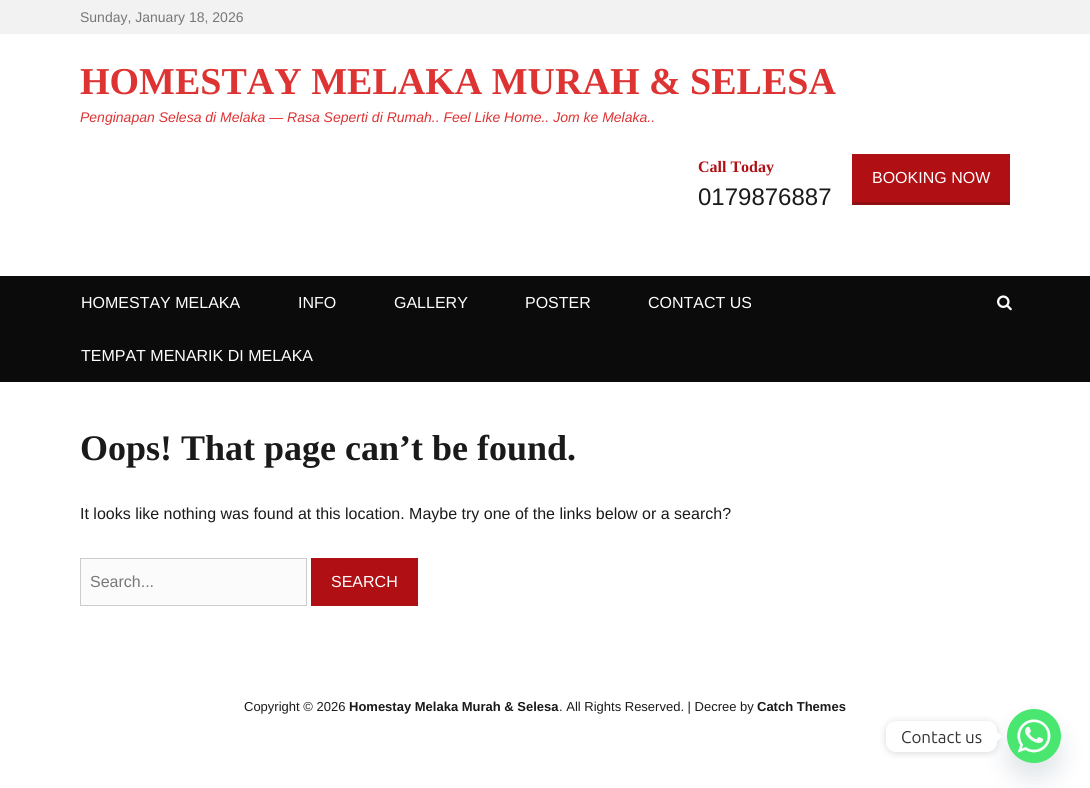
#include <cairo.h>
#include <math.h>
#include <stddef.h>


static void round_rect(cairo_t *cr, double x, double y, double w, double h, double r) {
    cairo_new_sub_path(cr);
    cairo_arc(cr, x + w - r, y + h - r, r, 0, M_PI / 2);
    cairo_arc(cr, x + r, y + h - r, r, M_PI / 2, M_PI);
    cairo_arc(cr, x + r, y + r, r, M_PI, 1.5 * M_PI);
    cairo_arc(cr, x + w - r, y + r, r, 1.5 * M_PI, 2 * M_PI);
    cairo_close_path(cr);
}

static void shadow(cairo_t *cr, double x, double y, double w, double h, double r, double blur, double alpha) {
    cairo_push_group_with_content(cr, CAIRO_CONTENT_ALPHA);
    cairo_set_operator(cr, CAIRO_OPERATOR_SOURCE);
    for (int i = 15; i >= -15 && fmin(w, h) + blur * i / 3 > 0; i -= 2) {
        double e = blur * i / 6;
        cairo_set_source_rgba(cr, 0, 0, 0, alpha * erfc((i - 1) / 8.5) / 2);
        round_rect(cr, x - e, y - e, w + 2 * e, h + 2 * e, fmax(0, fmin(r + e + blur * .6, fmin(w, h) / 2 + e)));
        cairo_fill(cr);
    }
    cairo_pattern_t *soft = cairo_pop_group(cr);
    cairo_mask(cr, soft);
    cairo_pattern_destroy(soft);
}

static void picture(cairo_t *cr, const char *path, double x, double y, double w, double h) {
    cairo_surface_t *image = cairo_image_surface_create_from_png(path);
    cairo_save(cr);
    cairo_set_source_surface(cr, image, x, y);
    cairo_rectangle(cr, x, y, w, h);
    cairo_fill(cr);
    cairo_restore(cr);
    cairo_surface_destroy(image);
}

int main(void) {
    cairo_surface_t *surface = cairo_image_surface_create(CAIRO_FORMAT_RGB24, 1090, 788);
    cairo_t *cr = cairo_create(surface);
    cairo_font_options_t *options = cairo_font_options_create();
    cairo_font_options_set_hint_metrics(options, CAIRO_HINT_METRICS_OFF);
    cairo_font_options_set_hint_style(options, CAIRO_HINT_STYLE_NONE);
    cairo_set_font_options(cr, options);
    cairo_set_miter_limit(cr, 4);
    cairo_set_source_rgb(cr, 1, 1, 1);
    cairo_paint(cr);
    cairo_set_source_rgb(cr, 0.949, 0.949, 0.949);
    cairo_rectangle(cr, 0, 0, 1090, 34);
    cairo_fill(cr);
    cairo_select_font_face(cr, "Liberation Sans", CAIRO_FONT_SLANT_NORMAL, CAIRO_FONT_WEIGHT_NORMAL);
    cairo_set_font_size(cr, 14);
    cairo_set_source_rgb(cr, 0.467, 0.467, 0.467);
    cairo_move_to(cr, 80, 22);
    cairo_show_text(cr, "Sunday, January 18, 2026");
    cairo_select_font_face(cr, "Liberation Serif", CAIRO_FONT_SLANT_NORMAL, CAIRO_FONT_WEIGHT_BOLD);
    cairo_set_font_size(cr, 38);
    cairo_set_source_rgb(cr, 0.867, 0.2, 0.2);
    cairo_move_to(cr, 80, 94);
    cairo_show_text(cr, "HOMESTAY MELAKA MURAH & SELESA");
    cairo_select_font_face(cr, "Liberation Sans", CAIRO_FONT_SLANT_ITALIC, CAIRO_FONT_WEIGHT_NORMAL);
    cairo_set_font_size(cr, 14);
    cairo_move_to(cr, 80, 122);
    cairo_show_text(cr, "Penginapan Selesa di Melaka — Rasa Seperti di Rumah.. Feel Like Home.. Jom ke Melaka..");
    cairo_select_font_face(cr, "Liberation Serif", CAIRO_FONT_SLANT_NORMAL, CAIRO_FONT_WEIGHT_BOLD);
    cairo_set_font_size(cr, 16);
    cairo_set_source_rgb(cr, 0.69, 0.059, 0.078);
    cairo_move_to(cr, 698, 172);
    cairo_show_text(cr, "Call Today");
    cairo_select_font_face(cr, "Liberation Sans", CAIRO_FONT_SLANT_NORMAL, CAIRO_FONT_WEIGHT_NORMAL);
    cairo_set_font_size(cr, 24);
    cairo_set_source_rgb(cr, 0.102, 0.102, 0.102);
    cairo_move_to(cr, 698, 205);
    cairo_show_text(cr, "0179876887");
    cairo_set_source_rgb(cr, 0.69, 0.059, 0.078);
    cairo_rectangle(cr, 852, 154, 158, 48);
    cairo_fill(cr);
    cairo_set_source_rgb(cr, 0.561, 0.063, 0.078);
    cairo_rectangle(cr, 852, 202, 158, 3);
    cairo_fill(cr);
    cairo_set_font_size(cr, 16);
    cairo_set_source_rgb(cr, 1, 1, 1);
    cairo_move_to(cr, 872, 183);
    cairo_show_text(cr, "BOOKING NOW");
    cairo_set_source_rgb(cr, 0.043, 0.043, 0.043);
    cairo_rectangle(cr, 0, 276, 1090, 106);
    cairo_fill(cr);
    cairo_set_source_rgb(cr, 1, 1, 1);
    cairo_move_to(cr, 81, 308);
    cairo_show_text(cr, "HOMESTAY MELAKA");
    cairo_move_to(cr, 298, 308);
    cairo_show_text(cr, "INFO");
    cairo_move_to(cr, 394, 308);
    cairo_show_text(cr, "GALLERY");
    cairo_move_to(cr, 525, 308);
    cairo_show_text(cr, "POSTER");
    cairo_move_to(cr, 648, 308);
    cairo_show_text(cr, "CONTACT US");
    cairo_move_to(cr, 81, 361);
    cairo_show_text(cr, "TEMPAT MENARIK DI MELAKA");
    picture(cr, "img1.png", 997, 295, 15, 16);
    cairo_select_font_face(cr, "Liberation Serif", CAIRO_FONT_SLANT_NORMAL, CAIRO_FONT_WEIGHT_BOLD);
    cairo_set_font_size(cr, 36);
    cairo_set_source_rgb(cr, 0.102, 0.102, 0.102);
    cairo_move_to(cr, 80, 460);
    cairo_show_text(cr, "Oops! That page can’t be found.");
    cairo_select_font_face(cr, "Liberation Sans", CAIRO_FONT_SLANT_NORMAL, CAIRO_FONT_WEIGHT_NORMAL);
    cairo_set_font_size(cr, 16);
    cairo_move_to(cr, 80, 519);
    cairo_show_text(cr, "It looks like nothing was found at this location. Maybe try one of the links below or a search?");
    cairo_set_source_rgb(cr, 0.984, 0.984, 0.984);
    cairo_rectangle(cr, 80.5, 558.5, 226, 47);
    cairo_fill_preserve(cr);
    cairo_set_source_rgb(cr, 0.8, 0.8, 0.8);
    cairo_set_line_width(cr, 1);
    cairo_stroke(cr);
    cairo_set_source_rgb(cr, 0.467, 0.467, 0.467);
    cairo_move_to(cr, 90, 587);
    cairo_show_text(cr, "Search...");
    cairo_set_source_rgb(cr, 0.69, 0.059, 0.078);
    cairo_rectangle(cr, 311, 558, 107, 48);
    cairo_fill(cr);
    cairo_set_source_rgb(cr, 1, 1, 1);
    cairo_move_to(cr, 331, 587);
    cairo_show_text(cr, "SEARCH");
    cairo_set_font_size(cr, 13);
    cairo_set_source_rgb(cr, 0.102, 0.102, 0.102);
    cairo_move_to(cr, 244, 711);
    cairo_show_text(cr, "Copyright © 2026");
    cairo_select_font_face(cr, "Liberation Sans", CAIRO_FONT_SLANT_NORMAL, CAIRO_FONT_WEIGHT_BOLD);
    cairo_move_to(cr, 349, 711);
    cairo_show_text(cr, "Homestay Melaka Murah & Selesa");
    cairo_select_font_face(cr, "Liberation Sans", CAIRO_FONT_SLANT_NORMAL, CAIRO_FONT_WEIGHT_NORMAL);
    cairo_move_to(cr, 559, 711);
    cairo_show_text(cr, ". All Rights Reserved. | Decree by");
    cairo_select_font_face(cr, "Liberation Sans", CAIRO_FONT_SLANT_NORMAL, CAIRO_FONT_WEIGHT_BOLD);
    cairo_move_to(cr, 757, 711);
    cairo_show_text(cr, "Catch Themes");
    cairo_set_source_rgb(cr, 0.286, 0.408, 0.494);
    shadow(cr, 1007, 725, 54, 54, 27, 12, 0.16);
    picture(cr, "img2.png", 1007, 709, 54, 54);
    cairo_set_source_rgb(cr, 0, 0, 0);
    shadow(cr, 886, 722, 111, 31, 10, 4, 0.15);
    cairo_set_source_rgb(cr, 1, 1, 1);
    round_rect(cr, 886, 721, 111, 31, 10);
    cairo_fill(cr);
    cairo_select_font_face(cr, "Ubuntu", CAIRO_FONT_SLANT_NORMAL, CAIRO_FONT_WEIGHT_NORMAL);
    cairo_set_font_size(cr, 17);
    cairo_set_source_rgb(cr, 0.2, 0.2, 0.2);
    cairo_move_to(cr, 901, 743);
    cairo_show_text(cr, "Contact us");
    cairo_set_source_rgb(cr, 1, 1, 1);
    cairo_new_path(cr);
    cairo_move_to(cr, 997, 741.5);
    cairo_line_to(cr, 997, 731.5);
    cairo_line_to(cr, 1002, 736.5);
    cairo_close_path(cr);
    cairo_fill(cr);
    cairo_surface_write_to_png(surface, "page.png");
    cairo_font_options_destroy(options);
    cairo_destroy(cr);
    cairo_surface_destroy(surface);
    return 0;
}
